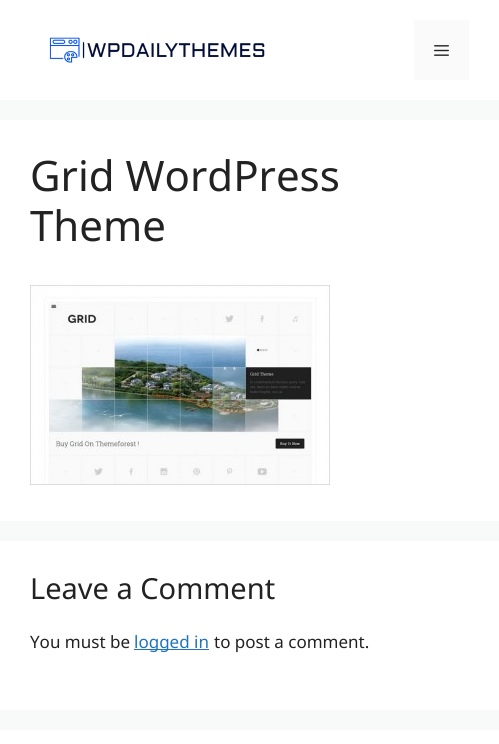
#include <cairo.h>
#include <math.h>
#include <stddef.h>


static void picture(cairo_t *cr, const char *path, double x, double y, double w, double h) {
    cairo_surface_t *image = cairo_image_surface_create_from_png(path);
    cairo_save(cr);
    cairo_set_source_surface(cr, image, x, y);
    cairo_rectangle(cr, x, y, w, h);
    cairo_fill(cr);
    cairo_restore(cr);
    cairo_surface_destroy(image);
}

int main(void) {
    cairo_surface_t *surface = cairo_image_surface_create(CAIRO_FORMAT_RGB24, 499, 744);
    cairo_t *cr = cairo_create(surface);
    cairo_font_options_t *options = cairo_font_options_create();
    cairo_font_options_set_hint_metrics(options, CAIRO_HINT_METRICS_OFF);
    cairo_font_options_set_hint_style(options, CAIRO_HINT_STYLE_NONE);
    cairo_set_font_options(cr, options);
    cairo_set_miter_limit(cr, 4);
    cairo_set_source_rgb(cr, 0.969, 0.973, 0.976);
    cairo_paint(cr);
    cairo_set_source_rgb(cr, 1, 1, 1);
    cairo_rectangle(cr, 0, 0, 499, 100);
    cairo_fill(cr);
    picture(cr, "img1.png", 49, 37, 216, 26);
    cairo_set_source_rgb(cr, 0.98, 0.98, 0.98);
    cairo_rectangle(cr, 414, 20, 55, 60);
    cairo_fill(cr);
    picture(cr, "img2.png", 434, 45, 15, 11);
    cairo_set_source_rgb(cr, 1, 1, 1);
    cairo_rectangle(cr, 0, 120, 499, 401);
    cairo_fill(cr);
    cairo_select_font_face(cr, "Noto Sans", CAIRO_FONT_SLANT_NORMAL, CAIRO_FONT_WEIGHT_NORMAL);
    cairo_set_font_size(cr, 42);
    cairo_set_source_rgb(cr, 0.133, 0.133, 0.133);
    cairo_move_to(cr, 30, 191);
    cairo_show_text(cr, "Grid WordPress");
    cairo_move_to(cr, 30, 241);
    cairo_show_text(cr, "Theme");
    picture(cr, "img3.png", 30, 285, 300, 200);
    cairo_set_source_rgb(cr, 1, 1, 1);
    cairo_rectangle(cr, 0, 541, 499, 169);
    cairo_fill(cr);
    cairo_set_font_size(cr, 29);
    cairo_set_source_rgb(cr, 0.133, 0.133, 0.133);
    cairo_move_to(cr, 30, 599);
    cairo_show_text(cr, "Leave a Comment");
    cairo_set_font_size(cr, 17);
    cairo_move_to(cr, 30, 648);
    cairo_show_text(cr, "You must be");
    cairo_set_source_rgb(cr, 0.118, 0.451, 0.745);
    cairo_rectangle(cr, 134, 649, 75, 1);
    cairo_fill(cr);
    cairo_move_to(cr, 134, 648);
    cairo_show_text(cr, "logged in");
    cairo_set_source_rgb(cr, 0.133, 0.133, 0.133);
    cairo_move_to(cr, 214, 648);
    cairo_show_text(cr, "to post a comment.");
    cairo_set_source_rgb(cr, 1, 1, 1);
    cairo_rectangle(cr, 0, 730, 499, 14);
    cairo_fill(cr);
    cairo_surface_write_to_png(surface, "page.png");
    cairo_font_options_destroy(options);
    cairo_destroy(cr);
    cairo_surface_destroy(surface);
    return 0;
}
